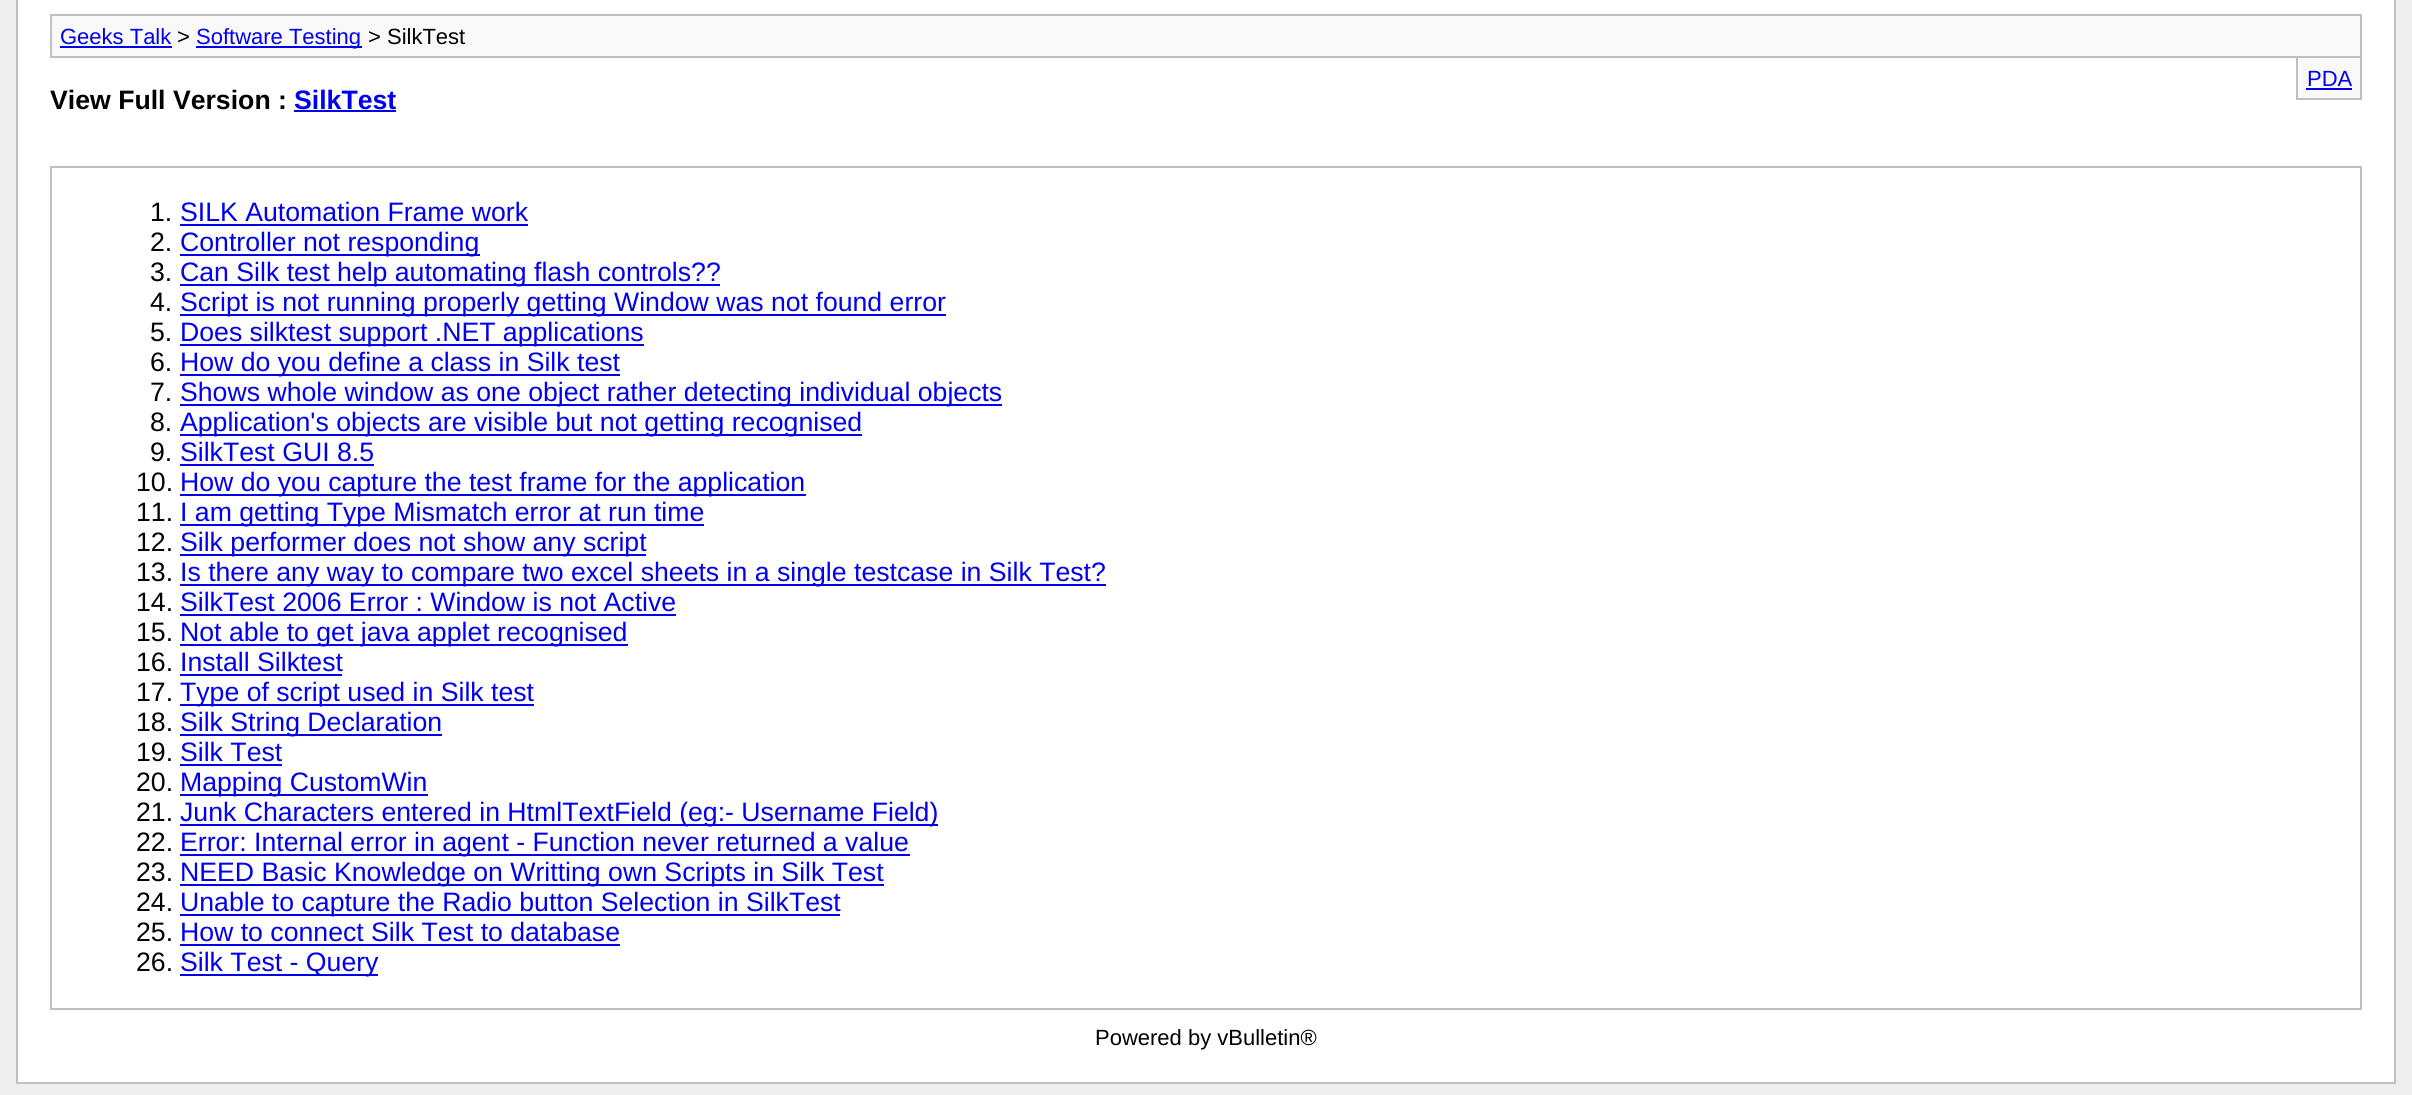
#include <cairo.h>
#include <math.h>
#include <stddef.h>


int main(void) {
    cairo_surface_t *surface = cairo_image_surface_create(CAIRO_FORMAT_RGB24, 2412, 1095);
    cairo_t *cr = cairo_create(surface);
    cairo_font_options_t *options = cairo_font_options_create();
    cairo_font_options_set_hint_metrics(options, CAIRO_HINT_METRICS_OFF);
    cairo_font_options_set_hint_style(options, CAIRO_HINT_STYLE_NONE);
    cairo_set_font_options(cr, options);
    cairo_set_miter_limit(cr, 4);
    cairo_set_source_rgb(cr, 0.933, 0.933, 0.933);
    cairo_paint(cr);
    cairo_set_source_rgb(cr, 1, 1, 1);
    cairo_rectangle(cr, 17, -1, 2378, 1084);
    cairo_fill_preserve(cr);
    cairo_set_source_rgb(cr, 0.753, 0.753, 0.753);
    cairo_stroke(cr);
    cairo_set_source_rgb(cr, 0.976, 0.976, 0.976);
    cairo_rectangle(cr, 51, 15, 2310, 42);
    cairo_fill_preserve(cr);
    cairo_set_source_rgb(cr, 0.753, 0.753, 0.753);
    cairo_stroke(cr);
    cairo_select_font_face(cr, "Liberation Sans", CAIRO_FONT_SLANT_NORMAL, CAIRO_FONT_WEIGHT_NORMAL);
    cairo_set_font_size(cr, 22);
    cairo_set_source_rgb(cr, 0, 0, 0.933);
    cairo_move_to(cr, 60, 44);
    cairo_show_text(cr, "Geeks Talk");
    cairo_rectangle(cr, 60, 46, 112, 2);
    cairo_fill(cr);
    cairo_set_source_rgb(cr, 0, 0, 0);
    cairo_move_to(cr, 177, 44);
    cairo_show_text(cr, ">");
    cairo_set_source_rgb(cr, 0, 0, 0.933);
    cairo_rectangle(cr, 196, 46, 166, 2);
    cairo_fill(cr);
    cairo_move_to(cr, 196, 44);
    cairo_show_text(cr, "Software Testing");
    cairo_set_source_rgb(cr, 0, 0, 0);
    cairo_move_to(cr, 368, 44);
    cairo_show_text(cr, "> SilkTest");
    cairo_set_source_rgb(cr, 0.976, 0.976, 0.976);
    cairo_rectangle(cr, 2298, 58, 62, 40);
    cairo_fill(cr);
    cairo_set_source_rgb(cr, 0.753, 0.753, 0.753);
    cairo_rectangle(cr, 2360, 58, 2, 42);
    cairo_fill(cr);
    cairo_rectangle(cr, 2296, 98, 66, 2);
    cairo_fill(cr);
    cairo_rectangle(cr, 2296, 58, 2, 42);
    cairo_fill(cr);
    cairo_set_source_rgb(cr, 0, 0, 0.933);
    cairo_move_to(cr, 2307, 86);
    cairo_show_text(cr, "PDA");
    cairo_rectangle(cr, 2306, 88, 46, 2);
    cairo_fill(cr);
    cairo_select_font_face(cr, "Liberation Sans", CAIRO_FONT_SLANT_NORMAL, CAIRO_FONT_WEIGHT_BOLD);
    cairo_set_font_size(cr, 26.65);
    cairo_set_source_rgb(cr, 0, 0, 0);
    cairo_move_to(cr, 50, 109);
    cairo_show_text(cr, "View Full Version :");
    cairo_set_source_rgb(cr, 0, 0, 0.933);
    cairo_move_to(cr, 294, 109);
    cairo_show_text(cr, "SilkTest");
    cairo_rectangle(cr, 294, 110, 102, 2);
    cairo_fill(cr);
    cairo_rectangle(cr, 51, 167, 2310, 842);
    cairo_set_source_rgb(cr, 0.753, 0.753, 0.753);
    cairo_stroke(cr);
    cairo_select_font_face(cr, "Liberation Sans", CAIRO_FONT_SLANT_NORMAL, CAIRO_FONT_WEIGHT_NORMAL);
    cairo_set_source_rgb(cr, 0, 0, 0);
    cairo_move_to(cr, 150, 221);
    cairo_show_text(cr, "1.");
    cairo_set_source_rgb(cr, 0, 0, 0.933);
    cairo_move_to(cr, 180, 221);
    cairo_show_text(cr, "SILK Automation Frame work");
    cairo_rectangle(cr, 180, 224, 348, 2);
    cairo_fill(cr);
    cairo_set_source_rgb(cr, 0, 0, 0);
    cairo_move_to(cr, 150, 251);
    cairo_show_text(cr, "2.");
    cairo_set_source_rgb(cr, 0, 0, 0.933);
    cairo_rectangle(cr, 180, 254, 300, 2);
    cairo_fill(cr);
    cairo_move_to(cr, 180, 251);
    cairo_show_text(cr, "Controller not responding");
    cairo_set_source_rgb(cr, 0, 0, 0);
    cairo_move_to(cr, 150, 281);
    cairo_show_text(cr, "3.");
    cairo_set_source_rgb(cr, 0, 0, 0.933);
    cairo_rectangle(cr, 180, 284, 540, 2);
    cairo_fill(cr);
    cairo_move_to(cr, 180, 281);
    cairo_show_text(cr, "Can Silk test help automating flash controls?\077");
    cairo_set_source_rgb(cr, 0, 0, 0);
    cairo_move_to(cr, 150, 311);
    cairo_show_text(cr, "4.");
    cairo_set_source_rgb(cr, 0, 0, 0.933);
    cairo_rectangle(cr, 180, 314, 766, 2);
    cairo_fill(cr);
    cairo_move_to(cr, 180, 311);
    cairo_show_text(cr, "Script is not running properly getting Window was not found error");
    cairo_set_source_rgb(cr, 0, 0, 0);
    cairo_move_to(cr, 150, 341);
    cairo_show_text(cr, "5.");
    cairo_set_source_rgb(cr, 0, 0, 0.933);
    cairo_rectangle(cr, 180, 344, 464, 2);
    cairo_fill(cr);
    cairo_move_to(cr, 180, 341);
    cairo_show_text(cr, "Does silktest support .NET applications");
    cairo_set_source_rgb(cr, 0, 0, 0);
    cairo_move_to(cr, 150, 371);
    cairo_show_text(cr, "6.");
    cairo_set_source_rgb(cr, 0, 0, 0.933);
    cairo_rectangle(cr, 180, 374, 440, 2);
    cairo_fill(cr);
    cairo_move_to(cr, 180, 371);
    cairo_show_text(cr, "How do you define a class in Silk test");
    cairo_set_source_rgb(cr, 0, 0, 0);
    cairo_move_to(cr, 150, 401);
    cairo_show_text(cr, "7.");
    cairo_set_source_rgb(cr, 0, 0, 0.933);
    cairo_rectangle(cr, 180, 404, 822, 2);
    cairo_fill(cr);
    cairo_move_to(cr, 180, 401);
    cairo_show_text(cr, "Shows whole window as one object rather detecting individual objects");
    cairo_set_source_rgb(cr, 0, 0, 0);
    cairo_move_to(cr, 150, 431);
    cairo_show_text(cr, "8.");
    cairo_set_source_rgb(cr, 0, 0, 0.933);
    cairo_rectangle(cr, 180, 434, 682, 2);
    cairo_fill(cr);
    cairo_move_to(cr, 180, 431);
    cairo_show_text(cr, "Application's objects are visible but not getting recognised");
    cairo_set_source_rgb(cr, 0, 0, 0);
    cairo_move_to(cr, 150, 461);
    cairo_show_text(cr, "9.");
    cairo_set_source_rgb(cr, 0, 0, 0.933);
    cairo_move_to(cr, 180, 461);
    cairo_show_text(cr, "SilkTest GUI 8.5");
    cairo_rectangle(cr, 180, 464, 194, 2);
    cairo_fill(cr);
    cairo_set_source_rgb(cr, 0, 0, 0);
    cairo_move_to(cr, 136, 491);
    cairo_show_text(cr, "10.");
    cairo_set_source_rgb(cr, 0, 0, 0.933);
    cairo_rectangle(cr, 180, 494, 626, 2);
    cairo_fill(cr);
    cairo_move_to(cr, 180, 491);
    cairo_show_text(cr, "How do you capture the test frame for the application");
    cairo_set_source_rgb(cr, 0, 0, 0);
    cairo_move_to(cr, 136, 521);
    cairo_show_text(cr, "11.");
    cairo_set_source_rgb(cr, 0, 0, 0.933);
    cairo_rectangle(cr, 180, 524, 524, 2);
    cairo_fill(cr);
    cairo_move_to(cr, 180, 521);
    cairo_show_text(cr, "I am getting Type Mismatch error at run time");
    cairo_set_source_rgb(cr, 0, 0, 0);
    cairo_move_to(cr, 136, 551);
    cairo_show_text(cr, "12.");
    cairo_set_source_rgb(cr, 0, 0, 0.933);
    cairo_rectangle(cr, 180, 554, 466, 2);
    cairo_fill(cr);
    cairo_move_to(cr, 180, 551);
    cairo_show_text(cr, "Silk performer does not show any script");
    cairo_set_source_rgb(cr, 0, 0, 0);
    cairo_move_to(cr, 136, 581);
    cairo_show_text(cr, "13.");
    cairo_set_source_rgb(cr, 0, 0, 0.933);
    cairo_rectangle(cr, 180, 584, 926, 2);
    cairo_fill(cr);
    cairo_move_to(cr, 180, 581);
    cairo_show_text(cr, "Is there any way to compare two excel sheets in a single testcase in Silk Test?");
    cairo_set_source_rgb(cr, 0, 0, 0);
    cairo_move_to(cr, 136, 611);
    cairo_show_text(cr, "14.");
    cairo_set_source_rgb(cr, 0, 0, 0.933);
    cairo_move_to(cr, 180, 611);
    cairo_show_text(cr, "SilkTest 2006 Error : Window is not Active");
    cairo_rectangle(cr, 180, 614, 496, 2);
    cairo_fill(cr);
    cairo_set_source_rgb(cr, 0, 0, 0);
    cairo_move_to(cr, 136, 641);
    cairo_show_text(cr, "15.");
    cairo_set_source_rgb(cr, 0, 0, 0.933);
    cairo_rectangle(cr, 180, 644, 448, 2);
    cairo_fill(cr);
    cairo_move_to(cr, 180, 641);
    cairo_show_text(cr, "Not able to get java applet recognised");
    cairo_set_source_rgb(cr, 0, 0, 0);
    cairo_move_to(cr, 136, 671);
    cairo_show_text(cr, "16.");
    cairo_set_source_rgb(cr, 0, 0, 0.933);
    cairo_move_to(cr, 180, 671);
    cairo_show_text(cr, "Install Silktest");
    cairo_rectangle(cr, 180, 674, 162, 2);
    cairo_fill(cr);
    cairo_set_source_rgb(cr, 0, 0, 0);
    cairo_move_to(cr, 136, 701);
    cairo_show_text(cr, "17.");
    cairo_set_source_rgb(cr, 0, 0, 0.933);
    cairo_rectangle(cr, 180, 704, 354, 2);
    cairo_fill(cr);
    cairo_move_to(cr, 180, 701);
    cairo_show_text(cr, "Type of script used in Silk test");
    cairo_set_source_rgb(cr, 0, 0, 0);
    cairo_move_to(cr, 136, 731);
    cairo_show_text(cr, "18.");
    cairo_set_source_rgb(cr, 0, 0, 0.933);
    cairo_rectangle(cr, 180, 734, 262, 2);
    cairo_fill(cr);
    cairo_move_to(cr, 180, 731);
    cairo_show_text(cr, "Silk String Declaration");
    cairo_set_source_rgb(cr, 0, 0, 0);
    cairo_move_to(cr, 136, 761);
    cairo_show_text(cr, "19.");
    cairo_set_source_rgb(cr, 0, 0, 0.933);
    cairo_move_to(cr, 180, 761);
    cairo_show_text(cr, "Silk Test");
    cairo_rectangle(cr, 180, 764, 102, 2);
    cairo_fill(cr);
    cairo_set_source_rgb(cr, 0, 0, 0);
    cairo_move_to(cr, 136, 791);
    cairo_show_text(cr, "20.");
    cairo_set_source_rgb(cr, 0, 0, 0.933);
    cairo_rectangle(cr, 180, 794, 248, 2);
    cairo_fill(cr);
    cairo_move_to(cr, 180, 791);
    cairo_show_text(cr, "Mapping CustomWin");
    cairo_set_source_rgb(cr, 0, 0, 0);
    cairo_move_to(cr, 136, 821);
    cairo_show_text(cr, "21.");
    cairo_set_source_rgb(cr, 0, 0, 0.933);
    cairo_rectangle(cr, 180, 824, 758, 2);
    cairo_fill(cr);
    cairo_move_to(cr, 180, 821);
    cairo_show_text(cr, "Junk Characters entered in HtmlTextField (eg:- Username Field)");
    cairo_set_source_rgb(cr, 0, 0, 0);
    cairo_move_to(cr, 136, 851);
    cairo_show_text(cr, "22.");
    cairo_set_source_rgb(cr, 0, 0, 0.933);
    cairo_rectangle(cr, 180, 854, 730, 2);
    cairo_fill(cr);
    cairo_move_to(cr, 180, 851);
    cairo_show_text(cr, "Error: Internal error in agent - Function never returned a value");
    cairo_set_source_rgb(cr, 0, 0, 0);
    cairo_move_to(cr, 136, 881);
    cairo_show_text(cr, "23.");
    cairo_set_source_rgb(cr, 0, 0, 0.933);
    cairo_rectangle(cr, 180, 884, 704, 2);
    cairo_fill(cr);
    cairo_move_to(cr, 180, 881);
    cairo_show_text(cr, "NEED Basic Knowledge on Writting own Scripts in Silk Test");
    cairo_set_source_rgb(cr, 0, 0, 0);
    cairo_move_to(cr, 136, 911);
    cairo_show_text(cr, "24.");
    cairo_set_source_rgb(cr, 0, 0, 0.933);
    cairo_rectangle(cr, 180, 914, 660, 2);
    cairo_fill(cr);
    cairo_move_to(cr, 180, 911);
    cairo_show_text(cr, "Unable to capture the Radio button Selection in SilkTest");
    cairo_set_source_rgb(cr, 0, 0, 0);
    cairo_move_to(cr, 136, 941);
    cairo_show_text(cr, "25.");
    cairo_set_source_rgb(cr, 0, 0, 0.933);
    cairo_move_to(cr, 180, 941);
    cairo_show_text(cr, "How to connect Silk Test to database");
    cairo_rectangle(cr, 180, 944, 440, 2);
    cairo_fill(cr);
    cairo_set_source_rgb(cr, 0, 0, 0);
    cairo_move_to(cr, 136, 971);
    cairo_show_text(cr, "26.");
    cairo_set_source_rgb(cr, 0, 0, 0.933);
    cairo_rectangle(cr, 180, 974, 198, 2);
    cairo_fill(cr);
    cairo_move_to(cr, 180, 971);
    cairo_show_text(cr, "Silk Test - Query");
    cairo_set_font_size(cr, 22);
    cairo_set_source_rgb(cr, 0, 0, 0);
    cairo_move_to(cr, 1095, 1045);
    cairo_show_text(cr, "Powered by vBulletin®");
    cairo_surface_write_to_png(surface, "page.png");
    cairo_font_options_destroy(options);
    cairo_destroy(cr);
    cairo_surface_destroy(surface);
    return 0;
}
